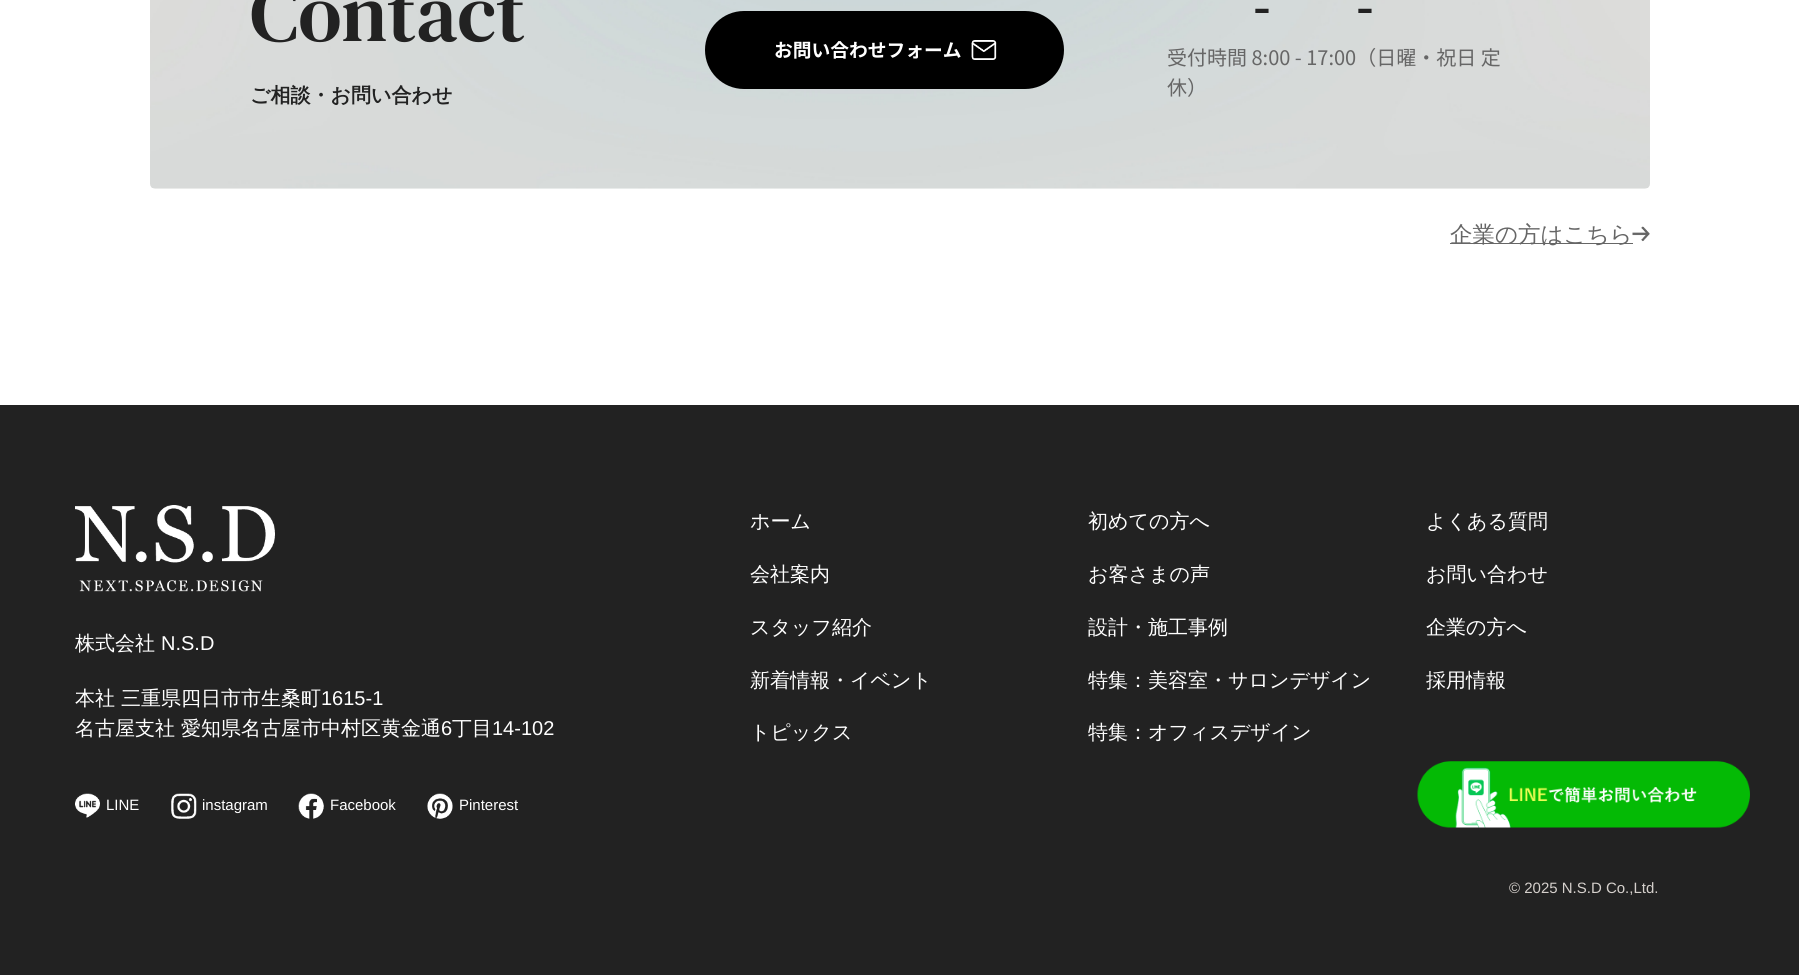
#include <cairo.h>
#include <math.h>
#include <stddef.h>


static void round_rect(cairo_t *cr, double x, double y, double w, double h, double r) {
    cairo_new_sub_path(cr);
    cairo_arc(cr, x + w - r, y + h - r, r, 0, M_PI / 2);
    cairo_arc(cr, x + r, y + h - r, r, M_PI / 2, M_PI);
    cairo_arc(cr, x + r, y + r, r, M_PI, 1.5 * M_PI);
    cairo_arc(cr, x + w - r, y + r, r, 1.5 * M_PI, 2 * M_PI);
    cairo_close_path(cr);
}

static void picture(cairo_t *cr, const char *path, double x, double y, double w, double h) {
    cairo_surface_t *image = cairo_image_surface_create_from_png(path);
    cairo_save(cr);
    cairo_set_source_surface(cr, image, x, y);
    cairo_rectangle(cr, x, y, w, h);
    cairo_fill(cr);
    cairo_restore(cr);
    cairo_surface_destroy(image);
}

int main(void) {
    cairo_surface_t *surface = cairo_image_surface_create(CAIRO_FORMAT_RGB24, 1799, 975);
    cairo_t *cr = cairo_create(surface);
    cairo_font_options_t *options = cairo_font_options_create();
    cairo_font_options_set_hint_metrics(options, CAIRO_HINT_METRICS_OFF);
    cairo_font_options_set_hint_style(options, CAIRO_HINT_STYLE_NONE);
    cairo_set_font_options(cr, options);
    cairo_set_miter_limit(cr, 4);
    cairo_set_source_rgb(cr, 1, 1, 1);
    cairo_paint(cr);
    picture(cr, "img1.png", 150, 0, 1500, 189);
    cairo_select_font_face(cr, "DM Serif Text", CAIRO_FONT_SLANT_NORMAL, CAIRO_FONT_WEIGHT_NORMAL);
    cairo_set_font_size(cr, 80);
    cairo_set_source_rgb(cr, 0.133, 0.133, 0.133);
    cairo_move_to(cr, 250, 41);
    cairo_show_text(cr, "Contact");
    cairo_select_font_face(cr, "WenQuanYi Zen Hei", CAIRO_FONT_SLANT_NORMAL, CAIRO_FONT_WEIGHT_BOLD);
    cairo_set_font_size(cr, 20);
    cairo_move_to(cr, 250, 102);
    cairo_show_text(cr, "ご相談・お問い合わせ");
    cairo_set_source_rgb(cr, 0, 0, 0);
    round_rect(cr, 705, 11, 359, 78, 39);
    cairo_fill(cr);
    cairo_select_font_face(cr, "Noto Sans JP", CAIRO_FONT_SLANT_NORMAL, CAIRO_FONT_WEIGHT_BOLD);
    cairo_set_font_size(cr, 18.75);
    cairo_set_source_rgb(cr, 1, 1, 1);
    cairo_move_to(cr, 774, 57);
    cairo_show_text(cr, "お問い合わせフォーム");
    picture(cr, "img2.png", 971, 40, 26, 20);
    cairo_select_font_face(cr, "Noto Sans JP Medium", CAIRO_FONT_SLANT_NORMAL, CAIRO_FONT_WEIGHT_NORMAL);
    cairo_set_font_size(cr, 50);
    cairo_set_source_rgb(cr, 0.133, 0.133, 0.133);
    cairo_move_to(cr, 1253, 25);
    cairo_show_text(cr, "-");
    cairo_move_to(cr, 1356, 25);
    cairo_show_text(cr, "-");
    cairo_select_font_face(cr, "Noto Sans JP", CAIRO_FONT_SLANT_NORMAL, CAIRO_FONT_WEIGHT_NORMAL);
    cairo_set_font_size(cr, 20);
    cairo_set_source_rgb(cr, 0.4, 0.4, 0.4);
    cairo_move_to(cr, 1167, 65);
    cairo_show_text(cr, "受付時間 8:00 - 17:00（日曜・祝日 定");
    cairo_move_to(cr, 1167, 95);
    cairo_show_text(cr, "休）");
    cairo_rectangle(cr, 1450, 243, 183, 1);
    cairo_fill(cr);
    cairo_select_font_face(cr, "WenQuanYi Zen Hei Medium", CAIRO_FONT_SLANT_NORMAL, CAIRO_FONT_WEIGHT_NORMAL);
    cairo_set_font_size(cr, 22.5);
    cairo_move_to(cr, 1450, 242);
    cairo_show_text(cr, "企業の方はこちら");
    picture(cr, "img3.png", 1632, 226, 18, 16);
    cairo_set_source_rgb(cr, 0.133, 0.133, 0.133);
    cairo_rectangle(cr, 0, 405, 1799, 570);
    cairo_fill(cr);
    picture(cr, "img4.png", 75, 505, 200, 87);
    cairo_set_font_size(cr, 20);
    cairo_set_source_rgb(cr, 1, 1, 1);
    cairo_move_to(cr, 75, 650);
    cairo_show_text(cr, "株式会社");
    cairo_select_font_face(cr, "Liberation Sans", CAIRO_FONT_SLANT_NORMAL, CAIRO_FONT_WEIGHT_NORMAL);
    cairo_move_to(cr, 161, 650);
    cairo_show_text(cr, "N.S.D");
    cairo_select_font_face(cr, "WenQuanYi Zen Hei Medium", CAIRO_FONT_SLANT_NORMAL, CAIRO_FONT_WEIGHT_NORMAL);
    cairo_move_to(cr, 75, 705);
    cairo_show_text(cr, "本社 三重県四日市市生桑町");
    cairo_select_font_face(cr, "Liberation Sans", CAIRO_FONT_SLANT_NORMAL, CAIRO_FONT_WEIGHT_NORMAL);
    cairo_move_to(cr, 321, 705);
    cairo_show_text(cr, "1615-1");
    cairo_select_font_face(cr, "WenQuanYi Zen Hei Medium", CAIRO_FONT_SLANT_NORMAL, CAIRO_FONT_WEIGHT_NORMAL);
    cairo_move_to(cr, 75, 735);
    cairo_show_text(cr, "名古屋支社 愛知県名古屋市中村区黄金通");
    cairo_select_font_face(cr, "Liberation Sans", CAIRO_FONT_SLANT_NORMAL, CAIRO_FONT_WEIGHT_NORMAL);
    cairo_move_to(cr, 441, 735);
    cairo_show_text(cr, "6");
    cairo_select_font_face(cr, "WenQuanYi Zen Hei Medium", CAIRO_FONT_SLANT_NORMAL, CAIRO_FONT_WEIGHT_NORMAL);
    cairo_move_to(cr, 452, 735);
    cairo_show_text(cr, "丁目");
    cairo_select_font_face(cr, "Liberation Sans", CAIRO_FONT_SLANT_NORMAL, CAIRO_FONT_WEIGHT_NORMAL);
    cairo_move_to(cr, 492, 735);
    cairo_show_text(cr, "14-102");
    picture(cr, "img5.png", 75, 793, 25, 25);
    cairo_set_font_size(cr, 15);
    cairo_move_to(cr, 106, 810);
    cairo_show_text(cr, "LINE");
    picture(cr, "img6.png", 171, 793, 26, 26);
    cairo_move_to(cr, 202, 810);
    cairo_show_text(cr, "instagram");
    picture(cr, "img7.png", 298, 793, 26, 26);
    cairo_move_to(cr, 330, 810);
    cairo_show_text(cr, "Facebook");
    picture(cr, "img8.png", 427, 793, 26, 26);
    cairo_move_to(cr, 459, 810);
    cairo_show_text(cr, "Pinterest");
    cairo_select_font_face(cr, "WenQuanYi Zen Hei Medium", CAIRO_FONT_SLANT_NORMAL, CAIRO_FONT_WEIGHT_NORMAL);
    cairo_set_font_size(cr, 20);
    cairo_move_to(cr, 750, 528);
    cairo_show_text(cr, "ホーム");
    cairo_move_to(cr, 750, 581);
    cairo_show_text(cr, "会社案内");
    cairo_move_to(cr, 750, 634);
    cairo_show_text(cr, "スタッフ紹介");
    cairo_move_to(cr, 750, 687);
    cairo_show_text(cr, "新着情報・イベント");
    cairo_move_to(cr, 750, 739);
    cairo_show_text(cr, "トピックス");
    cairo_move_to(cr, 1088, 528);
    cairo_show_text(cr, "初めての方へ");
    cairo_move_to(cr, 1088, 581);
    cairo_show_text(cr, "お客さまの声");
    cairo_move_to(cr, 1088, 634);
    cairo_show_text(cr, "設計・施工事例");
    cairo_move_to(cr, 1088, 687);
    cairo_show_text(cr, "特集：美容室・サロンデザイン");
    cairo_move_to(cr, 1088, 739);
    cairo_show_text(cr, "特集：オフィスデザイン");
    cairo_move_to(cr, 1426, 528);
    cairo_show_text(cr, "よくある質問");
    cairo_move_to(cr, 1426, 581);
    cairo_show_text(cr, "お問い合わせ");
    cairo_move_to(cr, 1426, 634);
    cairo_show_text(cr, "企業の方へ");
    cairo_move_to(cr, 1426, 687);
    cairo_show_text(cr, "採用情報");
    picture(cr, "img9.png", 1417, 761, 333, 67);
    cairo_select_font_face(cr, "Liberation Sans", CAIRO_FONT_SLANT_NORMAL, CAIRO_FONT_WEIGHT_NORMAL);
    cairo_set_font_size(cr, 15);
    cairo_set_source_rgb(cr, 0.835, 0.816, 0.8);
    cairo_move_to(cr, 1509, 893);
    cairo_show_text(cr, "© 2025 N.S.D Co.,Ltd.");
    cairo_surface_write_to_png(surface, "page.png");
    cairo_font_options_destroy(options);
    cairo_destroy(cr);
    cairo_surface_destroy(surface);
    return 0;
}
